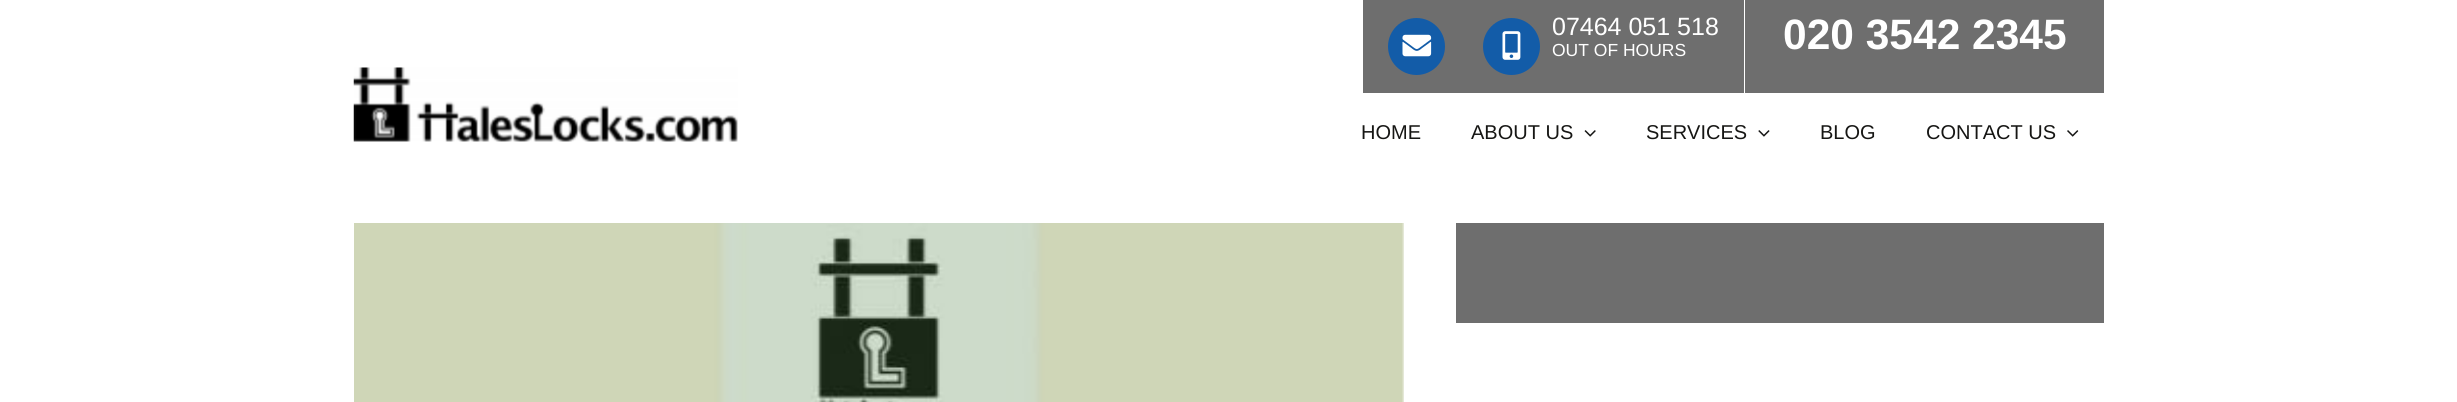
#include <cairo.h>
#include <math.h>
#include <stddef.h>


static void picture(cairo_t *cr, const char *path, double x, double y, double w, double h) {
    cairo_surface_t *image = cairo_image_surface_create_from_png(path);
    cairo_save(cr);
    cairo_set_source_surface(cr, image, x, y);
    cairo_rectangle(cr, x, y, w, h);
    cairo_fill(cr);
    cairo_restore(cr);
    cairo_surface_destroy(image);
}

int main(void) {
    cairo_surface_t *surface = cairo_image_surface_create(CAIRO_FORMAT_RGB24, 2457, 402);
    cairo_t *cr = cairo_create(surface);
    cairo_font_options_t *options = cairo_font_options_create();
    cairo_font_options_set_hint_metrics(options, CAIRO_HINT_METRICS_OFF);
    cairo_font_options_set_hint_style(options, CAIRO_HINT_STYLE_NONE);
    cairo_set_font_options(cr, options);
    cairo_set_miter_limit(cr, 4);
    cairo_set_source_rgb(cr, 1, 1, 1);
    cairo_paint(cr);
    cairo_set_source_rgb(cr, 0.431, 0.431, 0.431);
    cairo_rectangle(cr, 1363, 0, 381, 93);
    cairo_fill(cr);
    cairo_set_source_rgb(cr, 0.078, 0.361, 0.659);
    cairo_arc(cr, 1416.5, 46.5, 28.5, 0, 2 * M_PI);
    cairo_fill(cr);
    picture(cr, "img1.png", 1402, 34, 30, 23);
    cairo_arc(cr, 1511.5, 46.5, 28.5, 0, 2 * M_PI);
    cairo_fill(cr);
    picture(cr, "img2.png", 1502, 31, 19, 29);
    cairo_select_font_face(cr, "Liberation Sans", CAIRO_FONT_SLANT_NORMAL, CAIRO_FONT_WEIGHT_NORMAL);
    cairo_set_font_size(cr, 25);
    cairo_set_source_rgb(cr, 1, 1, 1);
    cairo_move_to(cr, 1552, 35);
    cairo_show_text(cr, "07464 051 518");
    cairo_set_font_size(cr, 17.5);
    cairo_move_to(cr, 1552, 56);
    cairo_show_text(cr, "OUT OF HOURS");
    cairo_set_source_rgb(cr, 0.431, 0.431, 0.431);
    cairo_rectangle(cr, 1745, 0, 359, 93);
    cairo_fill(cr);
    cairo_select_font_face(cr, "Liberation Sans", CAIRO_FONT_SLANT_NORMAL, CAIRO_FONT_WEIGHT_BOLD);
    cairo_set_font_size(cr, 42.5);
    cairo_set_source_rgb(cr, 1, 1, 1);
    cairo_move_to(cr, 1783, 49);
    cairo_show_text(cr, "020 3542 2345");
    picture(cr, "img3.png", 353, 67, 385, 75);
    cairo_select_font_face(cr, "Liberation Sans", CAIRO_FONT_SLANT_NORMAL, CAIRO_FONT_WEIGHT_NORMAL);
    cairo_set_font_size(cr, 20);
    cairo_set_source_rgb(cr, 0.086, 0.086, 0.082);
    cairo_move_to(cr, 1361, 139);
    cairo_show_text(cr, "HOME");
    cairo_move_to(cr, 1471, 139);
    cairo_show_text(cr, "ABOUT US");
    picture(cr, "img4.png", 1584, 130, 12, 7);
    cairo_move_to(cr, 1646, 139);
    cairo_show_text(cr, "SERVICES");
    picture(cr, "img5.png", 1758, 130, 12, 7);
    cairo_move_to(cr, 1820, 139);
    cairo_show_text(cr, "BLOG");
    cairo_move_to(cr, 1926, 139);
    cairo_show_text(cr, "CONTACT US");
    picture(cr, "img6.png", 2067, 130, 12, 7);
    picture(cr, "img7.png", 354, 223, 1050, 179);
    cairo_set_source_rgb(cr, 0.431, 0.431, 0.431);
    cairo_rectangle(cr, 1456, 223, 648, 100);
    cairo_fill(cr);
    cairo_surface_write_to_png(surface, "page.png");
    cairo_font_options_destroy(options);
    cairo_destroy(cr);
    cairo_surface_destroy(surface);
    return 0;
}
